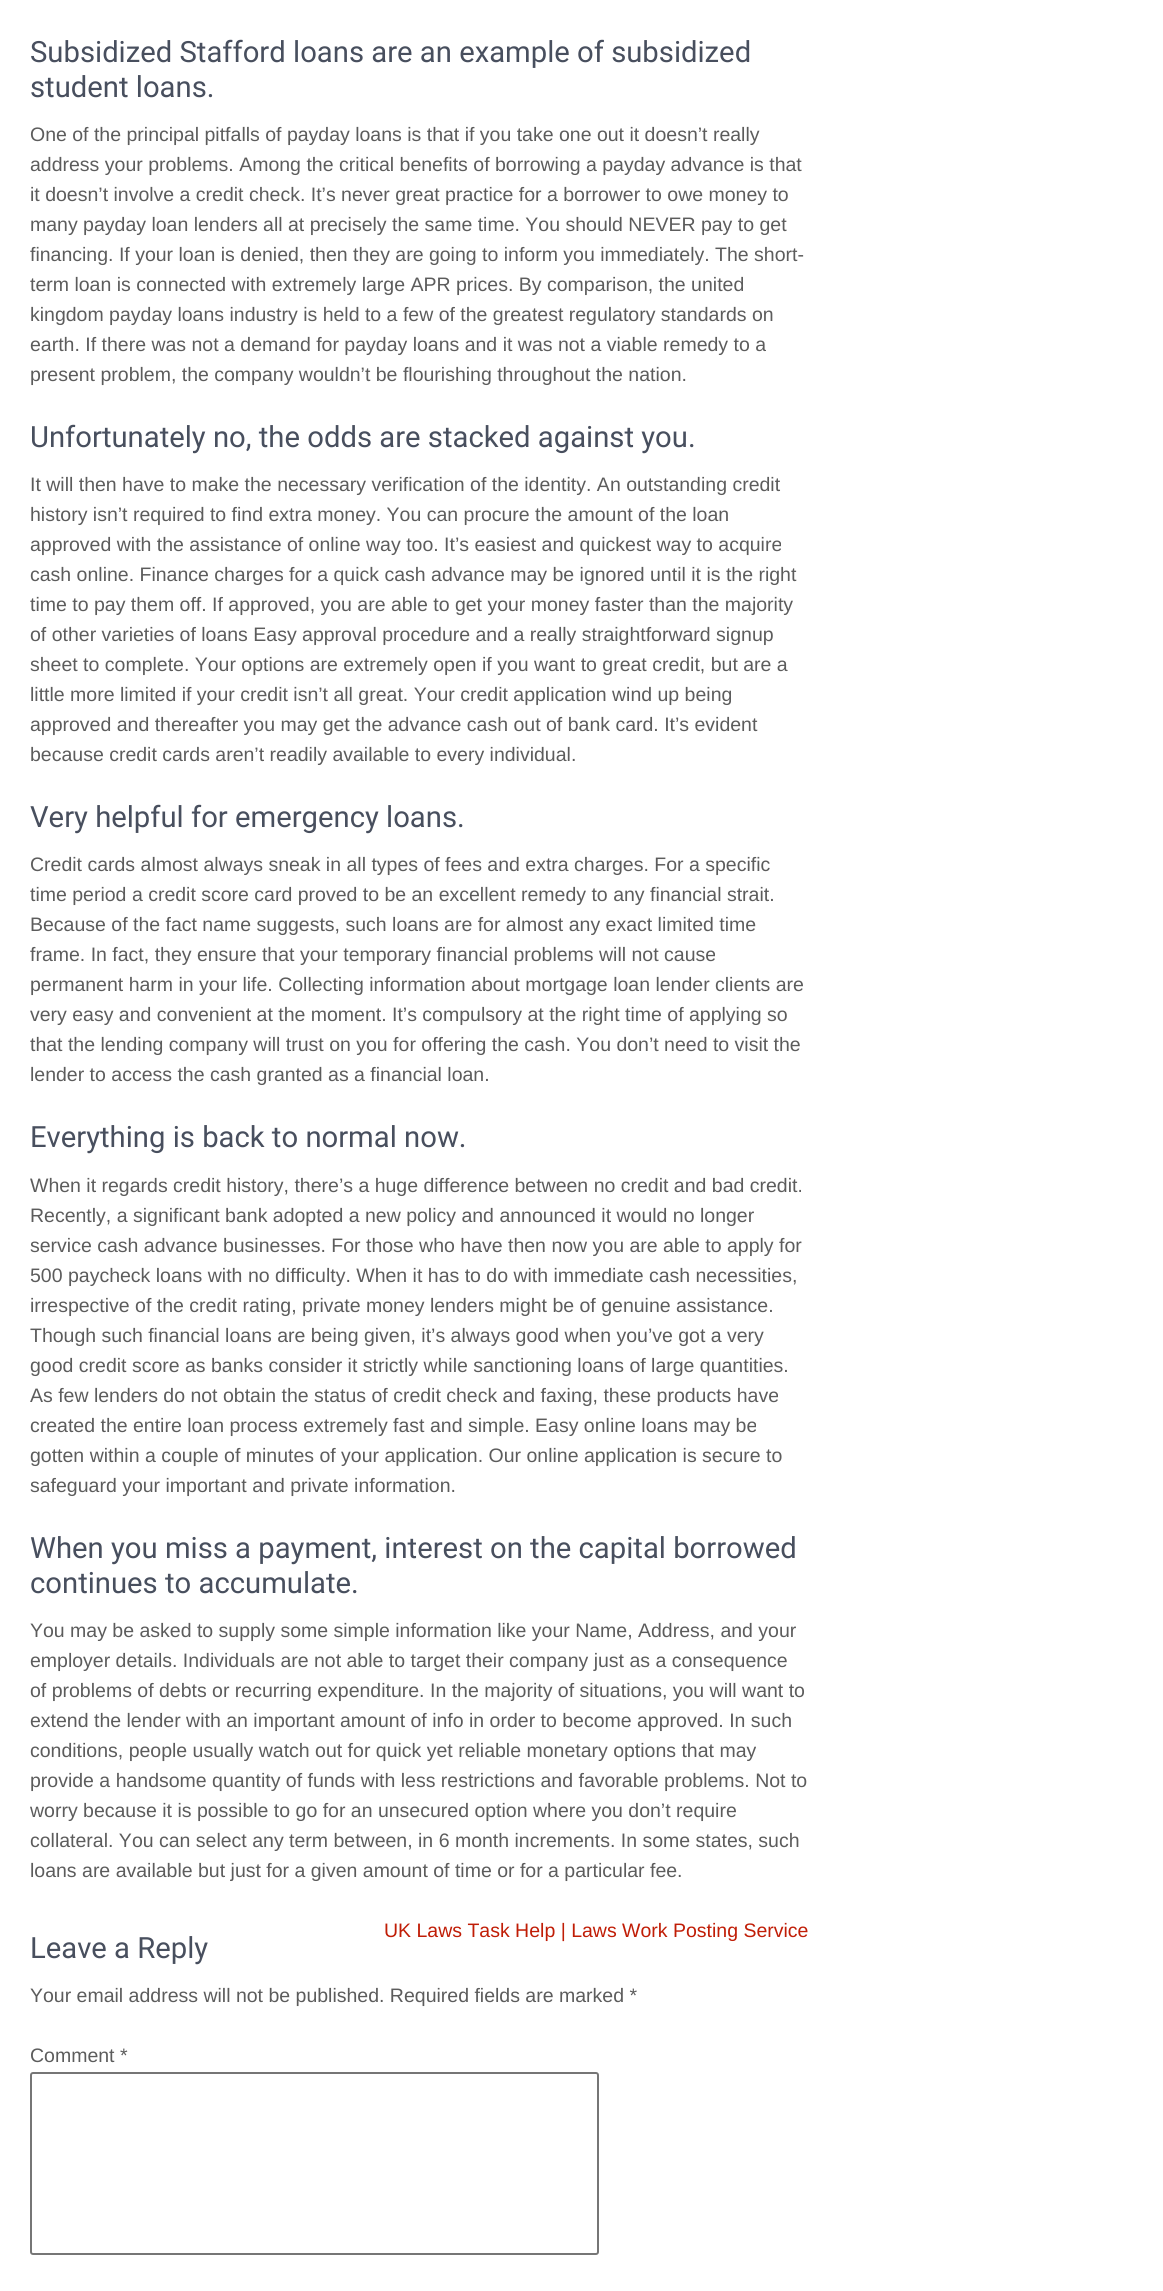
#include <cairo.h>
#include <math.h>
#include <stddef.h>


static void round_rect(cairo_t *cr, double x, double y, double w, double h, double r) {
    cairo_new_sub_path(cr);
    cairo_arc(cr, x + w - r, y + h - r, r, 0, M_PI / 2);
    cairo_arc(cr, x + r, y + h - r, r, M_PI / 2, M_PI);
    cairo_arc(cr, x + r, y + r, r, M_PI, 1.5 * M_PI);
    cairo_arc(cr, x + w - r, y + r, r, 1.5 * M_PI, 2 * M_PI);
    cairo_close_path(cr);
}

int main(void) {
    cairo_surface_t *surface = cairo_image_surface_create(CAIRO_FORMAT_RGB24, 1163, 2291);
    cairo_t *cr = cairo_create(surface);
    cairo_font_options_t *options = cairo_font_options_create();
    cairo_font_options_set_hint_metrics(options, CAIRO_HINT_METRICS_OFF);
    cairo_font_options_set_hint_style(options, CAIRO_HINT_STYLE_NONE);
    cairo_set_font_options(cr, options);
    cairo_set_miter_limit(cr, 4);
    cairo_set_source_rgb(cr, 1, 1, 1);
    cairo_paint(cr);
    cairo_select_font_face(cr, "Roboto", CAIRO_FONT_SLANT_NORMAL, CAIRO_FONT_WEIGHT_NORMAL);
    cairo_set_font_size(cr, 29.25);
    cairo_set_source_rgb(cr, 0.282, 0.31, 0.369);
    cairo_move_to(cr, 30, 62);
    cairo_show_text(cr, "Subsidized Stafford loans are an example of subsidized");
    cairo_move_to(cr, 30, 97);
    cairo_show_text(cr, "student loans.");
    cairo_select_font_face(cr, "Liberation Sans", CAIRO_FONT_SLANT_NORMAL, CAIRO_FONT_WEIGHT_NORMAL);
    cairo_set_font_size(cr, 19.5);
    cairo_set_source_rgb(cr, 0.361, 0.361, 0.361);
    cairo_move_to(cr, 30, 141);
    cairo_show_text(cr, "One of the principal pitfalls of payday loans is that if you take one out it doesn’t really");
    cairo_move_to(cr, 30, 171);
    cairo_show_text(cr, "address your problems. Among the critical benefits of borrowing a payday advance is that");
    cairo_move_to(cr, 30, 201);
    cairo_show_text(cr, "it doesn’t involve a credit check. It’s never great practice for a borrower to owe money to");
    cairo_move_to(cr, 30, 231);
    cairo_show_text(cr, "many payday loan lenders all at precisely the same time. You should NEVER pay to get");
    cairo_move_to(cr, 30, 261);
    cairo_show_text(cr, "financing. If your loan is denied, then they are going to inform you immediately. The short-");
    cairo_move_to(cr, 30, 291);
    cairo_show_text(cr, "term loan is connected with extremely large APR prices. By comparison, the united");
    cairo_move_to(cr, 30, 321);
    cairo_show_text(cr, "kingdom payday loans industry is held to a few of the greatest regulatory standards on");
    cairo_move_to(cr, 30, 351);
    cairo_show_text(cr, "earth. If there was not a demand for payday loans and it was not a viable remedy to a");
    cairo_move_to(cr, 30, 381);
    cairo_show_text(cr, "present problem, the company wouldn’t be flourishing throughout the nation.");
    cairo_select_font_face(cr, "Roboto", CAIRO_FONT_SLANT_NORMAL, CAIRO_FONT_WEIGHT_NORMAL);
    cairo_set_font_size(cr, 29.25);
    cairo_set_source_rgb(cr, 0.282, 0.31, 0.369);
    cairo_move_to(cr, 30, 447);
    cairo_show_text(cr, "Unfortunately no, the odds are stacked against you.");
    cairo_select_font_face(cr, "Liberation Sans", CAIRO_FONT_SLANT_NORMAL, CAIRO_FONT_WEIGHT_NORMAL);
    cairo_set_font_size(cr, 19.5);
    cairo_set_source_rgb(cr, 0.361, 0.361, 0.361);
    cairo_move_to(cr, 30, 491);
    cairo_show_text(cr, "It will then have to make the necessary verification of the identity. An outstanding credit");
    cairo_move_to(cr, 30, 521);
    cairo_show_text(cr, "history isn’t required to find extra money. You can procure the amount of the loan");
    cairo_move_to(cr, 30, 551);
    cairo_show_text(cr, "approved with the assistance of online way too. It’s easiest and quickest way to acquire");
    cairo_move_to(cr, 30, 581);
    cairo_show_text(cr, "cash online. Finance charges for a quick cash advance may be ignored until it is the right");
    cairo_move_to(cr, 30, 611);
    cairo_show_text(cr, "time to pay them off. If approved, you are able to get your money faster than the majority");
    cairo_move_to(cr, 30, 641);
    cairo_show_text(cr, "of other varieties of loans Easy approval procedure and a really straightforward signup");
    cairo_move_to(cr, 30, 671);
    cairo_show_text(cr, "sheet to complete. Your options are extremely open if you want to great credit, but are a");
    cairo_move_to(cr, 30, 701);
    cairo_show_text(cr, "little more limited if your credit isn’t all great. Your credit application wind up being");
    cairo_move_to(cr, 30, 731);
    cairo_show_text(cr, "approved and thereafter you may get the advance cash out of bank card. It’s evident");
    cairo_move_to(cr, 30, 761);
    cairo_show_text(cr, "because credit cards aren’t readily available to every individual.");
    cairo_select_font_face(cr, "Roboto", CAIRO_FONT_SLANT_NORMAL, CAIRO_FONT_WEIGHT_NORMAL);
    cairo_set_font_size(cr, 29.25);
    cairo_set_source_rgb(cr, 0.282, 0.31, 0.369);
    cairo_move_to(cr, 30, 827);
    cairo_show_text(cr, "Very helpful for emergency loans.");
    cairo_select_font_face(cr, "Liberation Sans", CAIRO_FONT_SLANT_NORMAL, CAIRO_FONT_WEIGHT_NORMAL);
    cairo_set_font_size(cr, 19.5);
    cairo_set_source_rgb(cr, 0.361, 0.361, 0.361);
    cairo_move_to(cr, 30, 871);
    cairo_show_text(cr, "Credit cards almost always sneak in all types of fees and extra charges. For a specific");
    cairo_move_to(cr, 30, 901);
    cairo_show_text(cr, "time period a credit score card proved to be an excellent remedy to any financial strait.");
    cairo_move_to(cr, 30, 931);
    cairo_show_text(cr, "Because of the fact name suggests, such loans are for almost any exact limited time");
    cairo_move_to(cr, 30, 961);
    cairo_show_text(cr, "frame. In fact, they ensure that your temporary financial problems will not cause");
    cairo_move_to(cr, 30, 991);
    cairo_show_text(cr, "permanent harm in your life. Collecting information about mortgage loan lender clients are");
    cairo_move_to(cr, 30, 1021);
    cairo_show_text(cr, "very easy and convenient at the moment. It’s compulsory at the right time of applying so");
    cairo_move_to(cr, 30, 1051);
    cairo_show_text(cr, "that the lending company will trust on you for offering the cash. You don’t need to visit the");
    cairo_move_to(cr, 30, 1081);
    cairo_show_text(cr, "lender to access the cash granted as a financial loan.");
    cairo_select_font_face(cr, "Roboto", CAIRO_FONT_SLANT_NORMAL, CAIRO_FONT_WEIGHT_NORMAL);
    cairo_set_font_size(cr, 29.25);
    cairo_set_source_rgb(cr, 0.282, 0.31, 0.369);
    cairo_move_to(cr, 30, 1147);
    cairo_show_text(cr, "Everything is back to normal now.");
    cairo_select_font_face(cr, "Liberation Sans", CAIRO_FONT_SLANT_NORMAL, CAIRO_FONT_WEIGHT_NORMAL);
    cairo_set_font_size(cr, 19.5);
    cairo_set_source_rgb(cr, 0.361, 0.361, 0.361);
    cairo_move_to(cr, 30, 1192);
    cairo_show_text(cr, "When it regards credit history, there’s a huge difference between no credit and bad credit.");
    cairo_move_to(cr, 30, 1222);
    cairo_show_text(cr, "Recently, a significant bank adopted a new policy and announced it would no longer");
    cairo_move_to(cr, 30, 1252);
    cairo_show_text(cr, "service cash advance businesses. For those who have then now you are able to apply for");
    cairo_move_to(cr, 30, 1282);
    cairo_show_text(cr, "500 paycheck loans with no difficulty. When it has to do with immediate cash necessities,");
    cairo_move_to(cr, 30, 1312);
    cairo_show_text(cr, "irrespective of the credit rating, private money lenders might be of genuine assistance.");
    cairo_move_to(cr, 30, 1342);
    cairo_show_text(cr, "Though such financial loans are being given, it’s always good when you’ve got a very");
    cairo_move_to(cr, 30, 1372);
    cairo_show_text(cr, "good credit score as banks consider it strictly while sanctioning loans of large quantities.");
    cairo_move_to(cr, 30, 1402);
    cairo_show_text(cr, "As few lenders do not obtain the status of credit check and faxing, these products have");
    cairo_move_to(cr, 30, 1432);
    cairo_show_text(cr, "created the entire loan process extremely fast and simple. Easy online loans may be");
    cairo_move_to(cr, 30, 1462);
    cairo_show_text(cr, "gotten within a couple of minutes of your application. Our online application is secure to");
    cairo_move_to(cr, 30, 1492);
    cairo_show_text(cr, "safeguard your important and private information.");
    cairo_select_font_face(cr, "Roboto", CAIRO_FONT_SLANT_NORMAL, CAIRO_FONT_WEIGHT_NORMAL);
    cairo_set_font_size(cr, 29.25);
    cairo_set_source_rgb(cr, 0.282, 0.31, 0.369);
    cairo_move_to(cr, 30, 1558);
    cairo_show_text(cr, "When you miss a payment, interest on the capital borrowed");
    cairo_move_to(cr, 30, 1593);
    cairo_show_text(cr, "continues to accumulate.");
    cairo_select_font_face(cr, "Liberation Sans", CAIRO_FONT_SLANT_NORMAL, CAIRO_FONT_WEIGHT_NORMAL);
    cairo_set_font_size(cr, 19.5);
    cairo_set_source_rgb(cr, 0.361, 0.361, 0.361);
    cairo_move_to(cr, 30, 1637);
    cairo_show_text(cr, "You may be asked to supply some simple information like your Name, Address, and your");
    cairo_move_to(cr, 30, 1667);
    cairo_show_text(cr, "employer details. Individuals are not able to target their company just as a consequence");
    cairo_move_to(cr, 30, 1697);
    cairo_show_text(cr, "of problems of debts or recurring expenditure. In the majority of situations, you will want to");
    cairo_move_to(cr, 30, 1727);
    cairo_show_text(cr, "extend the lender with an important amount of info in order to become approved. In such");
    cairo_move_to(cr, 30, 1757);
    cairo_show_text(cr, "conditions, people usually watch out for quick yet reliable monetary options that may");
    cairo_move_to(cr, 30, 1787);
    cairo_show_text(cr, "provide a handsome quantity of funds with less restrictions and favorable problems. Not to");
    cairo_move_to(cr, 30, 1817);
    cairo_show_text(cr, "worry because it is possible to go for an unsecured option where you don’t require");
    cairo_move_to(cr, 30, 1847);
    cairo_show_text(cr, "collateral. You can select any term between, in 6 month increments. In some states, such");
    cairo_move_to(cr, 30, 1877);
    cairo_show_text(cr, "loans are available but just for a given amount of time or for a particular fee.");
    cairo_set_source_rgb(cr, 0.753, 0.114, 0.024);
    cairo_move_to(cr, 384, 1937);
    cairo_show_text(cr, "UK Laws Task Help | Laws Work Posting Service");
    cairo_select_font_face(cr, "Roboto", CAIRO_FONT_SLANT_NORMAL, CAIRO_FONT_WEIGHT_NORMAL);
    cairo_set_font_size(cr, 29.25);
    cairo_set_source_rgb(cr, 0.282, 0.31, 0.369);
    cairo_move_to(cr, 30, 1958);
    cairo_show_text(cr, "Leave a Reply");
    cairo_select_font_face(cr, "Liberation Sans", CAIRO_FONT_SLANT_NORMAL, CAIRO_FONT_WEIGHT_NORMAL);
    cairo_set_font_size(cr, 19.5);
    cairo_set_source_rgb(cr, 0.361, 0.361, 0.361);
    cairo_move_to(cr, 30, 2002);
    cairo_show_text(cr, "Your email address will not be published. Required fields are marked *");
    cairo_move_to(cr, 30, 2062);
    cairo_show_text(cr, "Comment *");
    round_rect(cr, 31, 2073, 567, 181, 2);
    cairo_set_source_rgb(cr, 0.463, 0.463, 0.463);
    cairo_stroke(cr);
    cairo_surface_write_to_png(surface, "page.png");
    cairo_font_options_destroy(options);
    cairo_destroy(cr);
    cairo_surface_destroy(surface);
    return 0;
}
